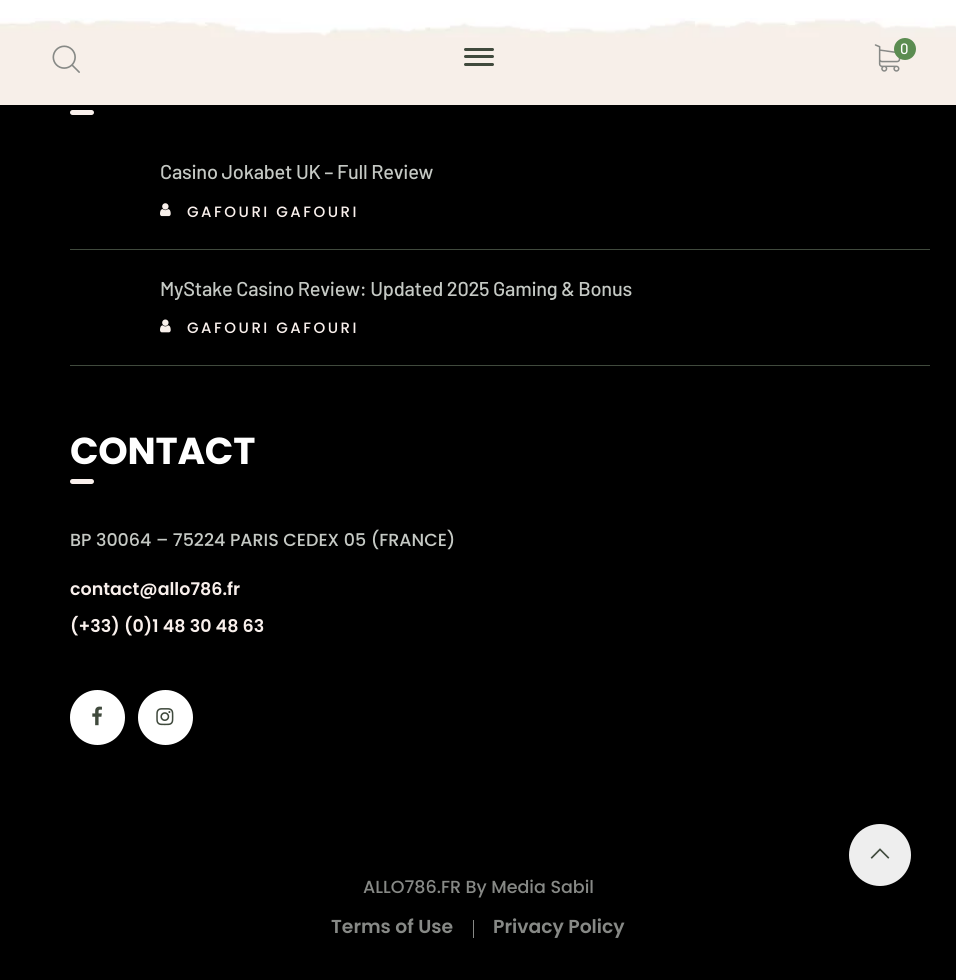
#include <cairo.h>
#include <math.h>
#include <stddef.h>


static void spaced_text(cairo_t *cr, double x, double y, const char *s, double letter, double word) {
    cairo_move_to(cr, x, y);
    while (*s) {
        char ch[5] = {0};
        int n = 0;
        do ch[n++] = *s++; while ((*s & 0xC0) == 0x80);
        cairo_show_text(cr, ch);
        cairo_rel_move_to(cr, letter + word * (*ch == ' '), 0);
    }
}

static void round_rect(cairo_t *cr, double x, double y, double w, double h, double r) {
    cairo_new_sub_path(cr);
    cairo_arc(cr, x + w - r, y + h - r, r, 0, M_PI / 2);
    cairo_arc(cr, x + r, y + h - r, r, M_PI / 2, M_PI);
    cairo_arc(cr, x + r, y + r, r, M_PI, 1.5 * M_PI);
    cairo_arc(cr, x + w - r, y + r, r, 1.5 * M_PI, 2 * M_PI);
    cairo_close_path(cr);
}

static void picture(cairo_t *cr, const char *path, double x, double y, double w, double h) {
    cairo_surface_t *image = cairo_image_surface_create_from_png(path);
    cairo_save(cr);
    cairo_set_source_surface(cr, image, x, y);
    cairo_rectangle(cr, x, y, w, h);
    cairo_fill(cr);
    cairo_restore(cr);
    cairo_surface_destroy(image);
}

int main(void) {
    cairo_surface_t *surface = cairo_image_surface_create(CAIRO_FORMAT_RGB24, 956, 980);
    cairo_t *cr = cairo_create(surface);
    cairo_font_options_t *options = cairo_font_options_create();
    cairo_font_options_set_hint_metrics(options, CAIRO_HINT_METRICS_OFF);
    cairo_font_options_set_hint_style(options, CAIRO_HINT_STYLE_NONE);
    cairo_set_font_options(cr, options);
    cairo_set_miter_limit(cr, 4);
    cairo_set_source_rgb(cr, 0, 0, 0);
    cairo_paint(cr);
    cairo_set_source_rgb(cr, 1, 1, 1);
    cairo_rectangle(cr, 0, 0, 956, 18);
    cairo_fill(cr);
    picture(cr, "img1.png", 0, 18, 956, 87);
    picture(cr, "img2.png", 52, 45, 28, 28);
    cairo_set_source_rgb(cr, 0.251, 0.29, 0.239);
    round_rect(cr, 464, 48, 30, 3, 1.5);
    cairo_fill(cr);
    round_rect(cr, 464, 55, 30, 3, 1.5);
    cairo_fill(cr);
    round_rect(cr, 464, 63, 30, 3, 1.5);
    cairo_fill(cr);
    picture(cr, "img3.png", 874, 44, 27, 28);
    cairo_set_source_rgb(cr, 0.357, 0.549, 0.318);
    cairo_arc(cr, 905, 49, 11, 0, 2 * M_PI);
    cairo_fill(cr);
    cairo_select_font_face(cr, "Barlow Medium", CAIRO_FONT_SLANT_NORMAL, CAIRO_FONT_WEIGHT_NORMAL);
    cairo_set_font_size(cr, 15);
    cairo_set_source_rgb(cr, 1, 1, 1);
    cairo_move_to(cr, 900, 54);
    cairo_show_text(cr, "0");
    cairo_set_source_rgb(cr, 0.973, 0.941, 0.922);
    round_rect(cr, 70, 110, 24, 5, 2.5);
    cairo_fill(cr);
    cairo_set_source_rgb(cr, 0.251, 0.29, 0.239);
    cairo_rectangle(cr, 70, 249, 860, 1);
    cairo_fill(cr);
    cairo_set_font_size(cr, 20);
    cairo_set_source_rgb(cr, 0.773, 0.788, 0.769);
    spaced_text(cr, 160, 179, "Casino Jokabet UK – Full Review", -0.25, 0);
    picture(cr, "img4.png", 160, 203, 11, 14);
    cairo_select_font_face(cr, "Poppins Medium", CAIRO_FONT_SLANT_NORMAL, CAIRO_FONT_WEIGHT_NORMAL);
    cairo_set_font_size(cr, 15);
    cairo_set_source_rgb(cr, 0.973, 0.941, 0.922);
    spaced_text(cr, 187, 217, "GAFOURI GAFOURI", 2.5, 0);
    cairo_set_source_rgb(cr, 0.251, 0.29, 0.239);
    cairo_rectangle(cr, 70, 365, 860, 1);
    cairo_fill(cr);
    cairo_select_font_face(cr, "Barlow Medium", CAIRO_FONT_SLANT_NORMAL, CAIRO_FONT_WEIGHT_NORMAL);
    cairo_set_font_size(cr, 20);
    cairo_set_source_rgb(cr, 0.773, 0.788, 0.769);
    spaced_text(cr, 160, 296, "MyStake Casino Review: Updated 2025 Gaming & Bonus", -0.25, 0);
    picture(cr, "img5.png", 160, 319, 11, 14);
    cairo_select_font_face(cr, "Poppins Medium", CAIRO_FONT_SLANT_NORMAL, CAIRO_FONT_WEIGHT_NORMAL);
    cairo_set_font_size(cr, 15);
    cairo_set_source_rgb(cr, 0.973, 0.941, 0.922);
    spaced_text(cr, 187, 333, "GAFOURI GAFOURI", 2.5, 0);
    cairo_select_font_face(cr, "Poppins", CAIRO_FONT_SLANT_NORMAL, CAIRO_FONT_WEIGHT_BOLD);
    cairo_set_font_size(cr, 37.5);
    cairo_set_source_rgb(cr, 1, 1, 1);
    spaced_text(cr, 70, 464, "CONTACT", -0.25, 0);
    cairo_set_source_rgb(cr, 0.973, 0.941, 0.922);
    round_rect(cr, 70, 479, 24, 5, 2.5);
    cairo_fill(cr);
    cairo_select_font_face(cr, "Poppins Medium", CAIRO_FONT_SLANT_NORMAL, CAIRO_FONT_WEIGHT_NORMAL);
    cairo_set_font_size(cr, 17.5);
    cairo_set_source_rgb(cr, 0.773, 0.788, 0.769);
    cairo_move_to(cr, 70, 546);
    cairo_show_text(cr, "BP 30064 – 75224 PARIS CEDEX 05 (FRANCE)");
    cairo_select_font_face(cr, "Poppins SemiBold", CAIRO_FONT_SLANT_NORMAL, CAIRO_FONT_WEIGHT_NORMAL);
    cairo_set_source_rgb(cr, 0.973, 0.941, 0.922);
    cairo_move_to(cr, 70, 595);
    cairo_show_text(cr, "contact@allo786.fr");
    cairo_move_to(cr, 70, 632);
    cairo_show_text(cr, "(+33) (0)1 48 30 48 63");
    cairo_set_source_rgb(cr, 1, 1, 1);
    cairo_new_path(cr);
    cairo_arc(cr, 97.5, 717.5, 27.5, 0, 2 * M_PI);
    cairo_fill(cr);
    picture(cr, "img6.png", 92, 706, 10, 20);
    cairo_arc(cr, 165.5, 717.5, 27.5, 0, 2 * M_PI);
    cairo_fill(cr);
    picture(cr, "img7.png", 156, 708, 18, 18);
    cairo_select_font_face(cr, "Poppins Medium", CAIRO_FONT_SLANT_NORMAL, CAIRO_FONT_WEIGHT_NORMAL);
    cairo_set_source_rgb(cr, 0.529, 0.537, 0.525);
    cairo_move_to(cr, 363, 893);
    cairo_show_text(cr, "ALLO786.FR By Media Sabil");
    cairo_select_font_face(cr, "Poppins SemiBold", CAIRO_FONT_SLANT_NORMAL, CAIRO_FONT_WEIGHT_NORMAL);
    cairo_set_font_size(cr, 18.75);
    cairo_move_to(cr, 331, 933);
    cairo_show_text(cr, "Terms of Use");
    cairo_rectangle(cr, 473, 920, 1, 18);
    cairo_fill(cr);
    cairo_move_to(cr, 493, 933);
    cairo_show_text(cr, "Privacy Policy");
    cairo_set_source_rgb(cr, 0.933, 0.933, 0.933);
    cairo_new_path(cr);
    cairo_arc(cr, 880, 855, 31, 0, 2 * M_PI);
    cairo_fill(cr);
    picture(cr, "img8.png", 870, 848, 20, 11);
    cairo_surface_write_to_png(surface, "page.png");
    cairo_font_options_destroy(options);
    cairo_destroy(cr);
    cairo_surface_destroy(surface);
    return 0;
}
